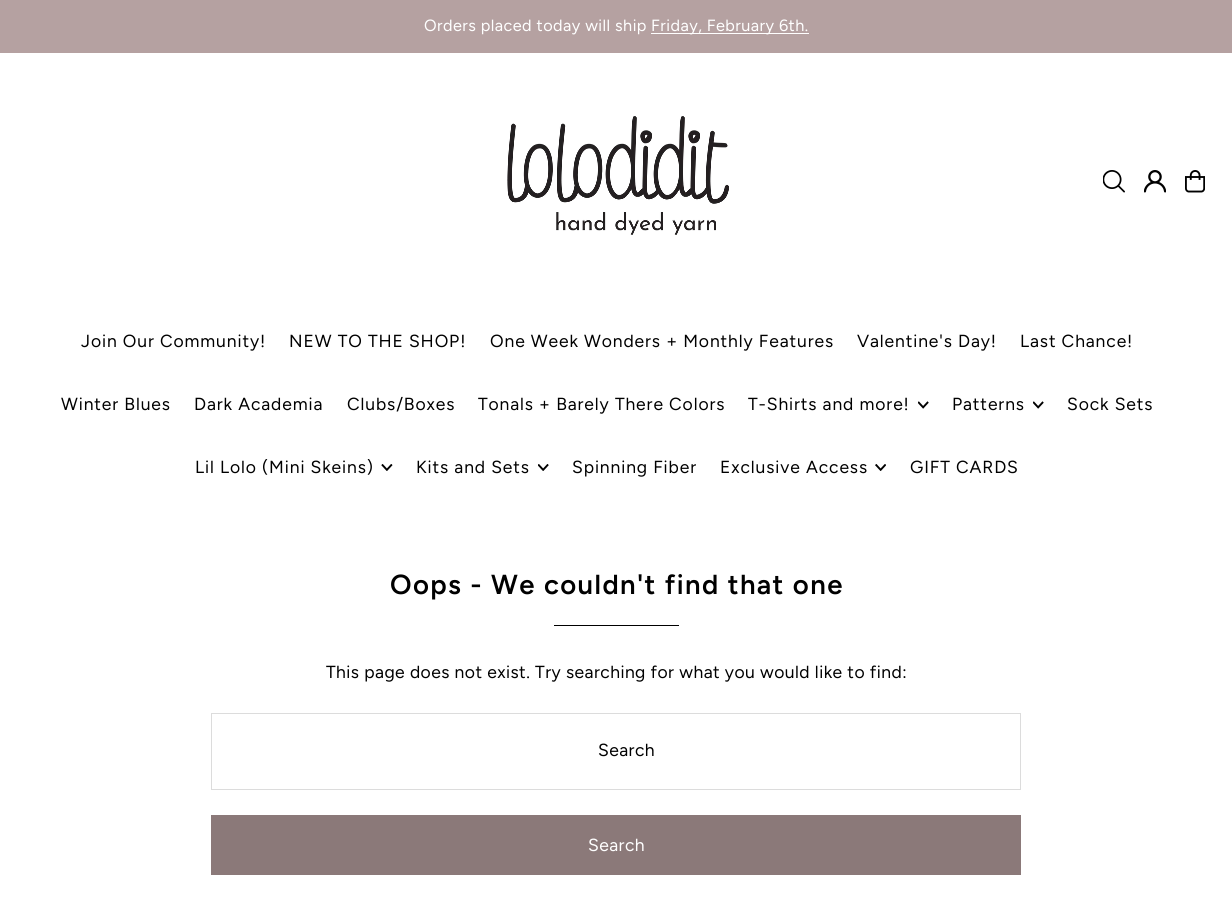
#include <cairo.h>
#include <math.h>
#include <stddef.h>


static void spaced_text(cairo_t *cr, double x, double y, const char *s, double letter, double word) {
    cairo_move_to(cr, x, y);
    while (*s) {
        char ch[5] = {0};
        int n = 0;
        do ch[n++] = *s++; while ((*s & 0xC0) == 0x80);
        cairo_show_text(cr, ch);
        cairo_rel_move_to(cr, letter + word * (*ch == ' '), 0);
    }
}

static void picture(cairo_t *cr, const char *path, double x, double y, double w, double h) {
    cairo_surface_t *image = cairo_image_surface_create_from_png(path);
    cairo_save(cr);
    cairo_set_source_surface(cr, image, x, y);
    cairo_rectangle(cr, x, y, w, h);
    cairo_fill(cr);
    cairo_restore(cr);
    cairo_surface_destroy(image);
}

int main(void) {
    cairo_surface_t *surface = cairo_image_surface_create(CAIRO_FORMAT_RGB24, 1232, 906);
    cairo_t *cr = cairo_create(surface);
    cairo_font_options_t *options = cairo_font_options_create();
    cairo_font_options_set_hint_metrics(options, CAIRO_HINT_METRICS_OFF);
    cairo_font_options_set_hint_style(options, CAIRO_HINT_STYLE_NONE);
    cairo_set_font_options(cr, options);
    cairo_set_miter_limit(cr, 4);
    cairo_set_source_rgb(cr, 1, 1, 1);
    cairo_paint(cr);
    cairo_set_source_rgb(cr, 0.71, 0.631, 0.631);
    cairo_rectangle(cr, 0, 0, 1232, 53);
    cairo_fill(cr);
    cairo_select_font_face(cr, "Figtree", CAIRO_FONT_SLANT_NORMAL, CAIRO_FONT_WEIGHT_NORMAL);
    cairo_set_font_size(cr, 16.25);
    cairo_set_source_rgb(cr, 1, 1, 1);
    spaced_text(cr, 424, 31, "Orders placed today will ship", 0.45, 0);
    cairo_rectangle(cr, 651, 33, 158, 1);
    cairo_fill(cr);
    spaced_text(cr, 651, 31, "Friday, February 6th.", 0.45, 0);
    picture(cr, "img1.png", 507, 116, 222, 119);
    picture(cr, "img2.png", 1103, 170, 22, 23);
    picture(cr, "img3.png", 1144, 170, 22, 23);
    picture(cr, "img4.png", 1185, 170, 20, 23);
    cairo_set_font_size(cr, 17.5);
    cairo_set_source_rgb(cr, 0, 0, 0);
    spaced_text(cr, 81, 347, "Join Our Community!", 0.9, 0);
    spaced_text(cr, 289, 347, "NEW TO THE SHOP!", 0.9, 0);
    spaced_text(cr, 490, 347, "One Week Wonders + Monthly Features", 0.9, 0);
    spaced_text(cr, 857, 347, "Valentine's Day!", 0.9, 0);
    spaced_text(cr, 1020, 347, "Last Chance!", 0.9, 0);
    spaced_text(cr, 61, 410, "Winter Blues", 0.9, 0);
    spaced_text(cr, 194, 410, "Dark Academia", 0.9, 0);
    spaced_text(cr, 347, 410, "Clubs/Boxes", 0.9, 0);
    spaced_text(cr, 478, 410, "Tonals + Barely There Colors", 0.9, 0);
    spaced_text(cr, 748, 410, "T-Shirts and more!", 0.9, 0);
    picture(cr, "img5.png", 918, 401, 11, 8);
    spaced_text(cr, 952, 410, "Patterns", 0.9, 0);
    picture(cr, "img5.png", 1033, 401, 11, 8);
    spaced_text(cr, 1067, 410, "Sock Sets", 0.9, 0);
    spaced_text(cr, 195, 473, "Lil Lolo (Mini Skeins)", 0.9, 0);
    picture(cr, "img6.png", 381, 464, 12, 7);
    spaced_text(cr, 416, 473, "Kits and Sets", 0.9, 0);
    picture(cr, "img7.png", 538, 464, 11, 7);
    spaced_text(cr, 572, 473, "Spinning Fiber", 0.9, 0);
    spaced_text(cr, 720, 473, "Exclusive Access", 0.9, 0);
    picture(cr, "img8.png", 875, 464, 11, 7);
    spaced_text(cr, 910, 473, "GIFT CARDS", 0.9, 0);
    cairo_select_font_face(cr, "Figtree SemiBold", CAIRO_FONT_SLANT_NORMAL, CAIRO_FONT_WEIGHT_NORMAL);
    cairo_set_font_size(cr, 27.5);
    spaced_text(cr, 390, 594, "Oops - We couldn't find that one", 1.4, 0);
    cairo_rectangle(cr, 554, 625, 125, 1);
    cairo_fill(cr);
    cairo_select_font_face(cr, "Figtree", CAIRO_FONT_SLANT_NORMAL, CAIRO_FONT_WEIGHT_NORMAL);
    cairo_set_font_size(cr, 17.5);
    spaced_text(cr, 326, 678, "This page does not exist. Try searching for what you would like to find:", 0.45, 0);
    cairo_rectangle(cr, 211.5, 713.5, 809, 76);
    cairo_set_source_rgb(cr, 0.863, 0.863, 0.863);
    cairo_set_line_width(cr, 1);
    cairo_stroke(cr);
    cairo_set_source_rgb(cr, 0, 0, 0);
    spaced_text(cr, 598, 756, "Search", 0.45, 0);
    cairo_set_source_rgb(cr, 0.545, 0.475, 0.475);
    cairo_rectangle(cr, 211, 815, 810, 60);
    cairo_fill(cr);
    cairo_set_source_rgb(cr, 1, 1, 1);
    spaced_text(cr, 588, 851, "Search", 0.45, 0);
    cairo_surface_write_to_png(surface, "page.png");
    cairo_font_options_destroy(options);
    cairo_destroy(cr);
    cairo_surface_destroy(surface);
    return 0;
}
